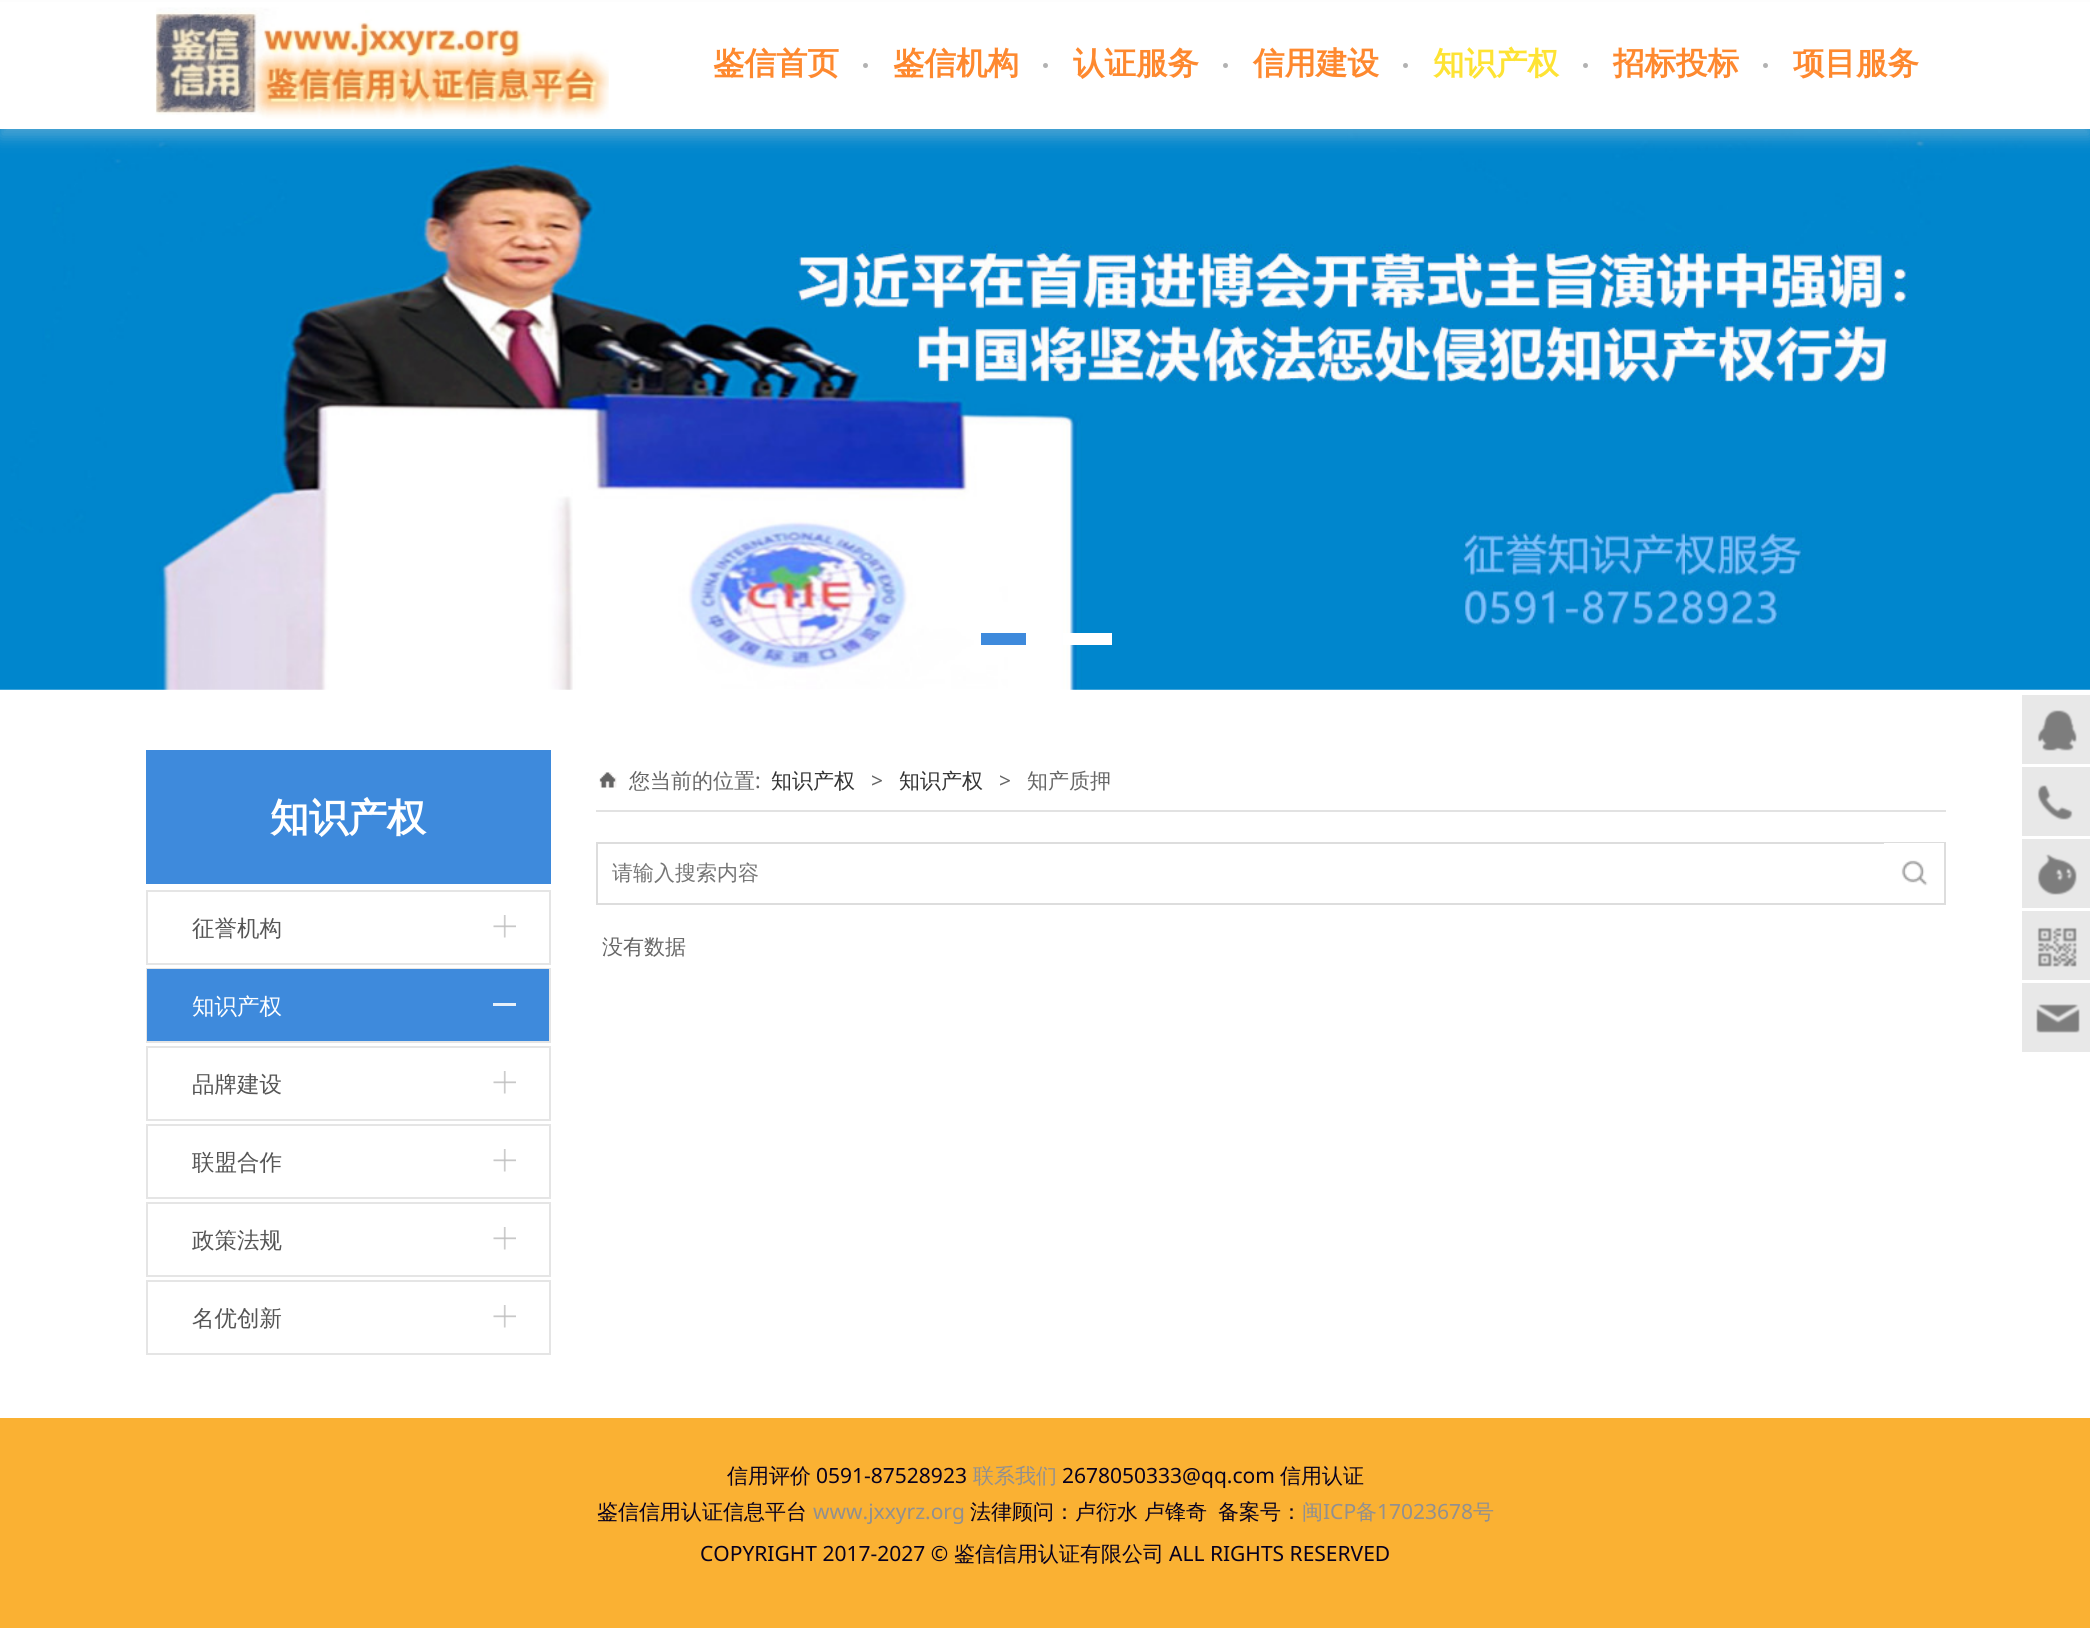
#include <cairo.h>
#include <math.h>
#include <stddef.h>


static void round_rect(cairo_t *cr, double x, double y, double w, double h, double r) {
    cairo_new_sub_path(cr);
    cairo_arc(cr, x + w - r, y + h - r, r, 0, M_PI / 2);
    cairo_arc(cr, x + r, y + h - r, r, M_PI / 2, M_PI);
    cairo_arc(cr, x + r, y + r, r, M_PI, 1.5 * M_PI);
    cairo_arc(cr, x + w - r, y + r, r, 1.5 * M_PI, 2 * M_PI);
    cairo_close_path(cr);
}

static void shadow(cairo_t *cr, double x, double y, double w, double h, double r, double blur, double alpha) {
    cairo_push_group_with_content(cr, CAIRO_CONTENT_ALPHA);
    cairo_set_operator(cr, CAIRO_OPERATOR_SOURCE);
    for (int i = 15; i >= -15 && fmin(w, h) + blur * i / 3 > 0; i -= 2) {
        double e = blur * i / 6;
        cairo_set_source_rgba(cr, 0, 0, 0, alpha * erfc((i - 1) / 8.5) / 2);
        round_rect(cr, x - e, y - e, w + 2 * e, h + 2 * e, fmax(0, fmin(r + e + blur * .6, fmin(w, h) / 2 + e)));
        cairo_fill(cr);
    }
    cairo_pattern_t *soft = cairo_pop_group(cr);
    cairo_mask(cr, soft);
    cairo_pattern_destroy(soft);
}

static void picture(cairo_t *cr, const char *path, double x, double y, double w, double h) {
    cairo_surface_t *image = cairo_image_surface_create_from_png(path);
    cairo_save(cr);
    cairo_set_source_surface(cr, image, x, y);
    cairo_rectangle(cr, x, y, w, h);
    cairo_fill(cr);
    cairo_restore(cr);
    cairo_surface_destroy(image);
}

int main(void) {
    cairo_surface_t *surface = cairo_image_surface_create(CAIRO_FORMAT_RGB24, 2090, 1628);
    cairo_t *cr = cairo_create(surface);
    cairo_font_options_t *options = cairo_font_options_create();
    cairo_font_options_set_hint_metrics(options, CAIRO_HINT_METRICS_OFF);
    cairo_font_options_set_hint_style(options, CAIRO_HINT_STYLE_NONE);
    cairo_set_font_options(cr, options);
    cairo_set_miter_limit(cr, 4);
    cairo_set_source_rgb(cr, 1, 1, 1);
    cairo_paint(cr);
    picture(cr, "img2.png", 0, 129, 2090, 561);
    cairo_set_source_rgb(cr, 0.867, 0.867, 0.867);
    shadow(cr, 0, 8, 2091, 129, 0, 7.5, 0.35);
    cairo_set_source_rgb(cr, 1, 1, 1);
    cairo_rectangle(cr, 0, 2, 2090, 127);
    cairo_fill(cr);
    picture(cr, "img1.png", 155, 7, 454, 112);
    cairo_select_font_face(cr, "WenQuanYi Zen Hei", CAIRO_FONT_SLANT_NORMAL, CAIRO_FONT_WEIGHT_BOLD);
    cairo_set_font_size(cr, 31.5);
    cairo_set_source_rgb(cr, 0.996, 0.537, 0.184);
    cairo_move_to(cr, 713, 74);
    cairo_show_text(cr, "鉴信首页");
    cairo_set_source_rgb(cr, 0.698, 0.698, 0.698);
    cairo_new_path(cr);
    cairo_arc(cr, 865.5, 65.5, 2.5, 0, 2 * M_PI);
    cairo_fill(cr);
    cairo_set_source_rgb(cr, 0.996, 0.537, 0.184);
    cairo_move_to(cr, 893, 74);
    cairo_show_text(cr, "鉴信机构");
    cairo_set_source_rgb(cr, 0.698, 0.698, 0.698);
    cairo_new_path(cr);
    cairo_arc(cr, 1045.5, 65.5, 2.5, 0, 2 * M_PI);
    cairo_fill(cr);
    cairo_set_source_rgb(cr, 0.996, 0.537, 0.184);
    cairo_move_to(cr, 1073, 74);
    cairo_show_text(cr, "认证服务");
    cairo_set_source_rgb(cr, 0.698, 0.698, 0.698);
    cairo_new_path(cr);
    cairo_arc(cr, 1225.5, 65.5, 2.5, 0, 2 * M_PI);
    cairo_fill(cr);
    cairo_set_source_rgb(cr, 0.996, 0.537, 0.184);
    cairo_move_to(cr, 1253, 74);
    cairo_show_text(cr, "信用建设");
    cairo_set_source_rgb(cr, 0.698, 0.698, 0.698);
    cairo_new_path(cr);
    cairo_arc(cr, 1405.5, 65.5, 2.5, 0, 2 * M_PI);
    cairo_fill(cr);
    cairo_set_source_rgb(cr, 0.996, 0.89, 0.204);
    cairo_move_to(cr, 1433, 74);
    cairo_show_text(cr, "知识产权");
    cairo_set_source_rgb(cr, 0.698, 0.698, 0.698);
    cairo_new_path(cr);
    cairo_arc(cr, 1585.5, 65.5, 2.5, 0, 2 * M_PI);
    cairo_fill(cr);
    cairo_set_source_rgb(cr, 0.996, 0.537, 0.184);
    cairo_move_to(cr, 1613, 74);
    cairo_show_text(cr, "招标投标");
    cairo_set_source_rgb(cr, 0.698, 0.698, 0.698);
    cairo_new_path(cr);
    cairo_arc(cr, 1765.5, 65.5, 2.5, 0, 2 * M_PI);
    cairo_fill(cr);
    cairo_set_source_rgb(cr, 0.996, 0.537, 0.184);
    cairo_move_to(cr, 1793, 74);
    cairo_show_text(cr, "项目服务");
    cairo_set_source_rgb(cr, 0.243, 0.541, 0.863);
    cairo_rectangle(cr, 981, 633, 45, 12);
    cairo_fill(cr);
    cairo_set_source_rgb(cr, 1, 1, 1);
    cairo_rectangle(cr, 1063, 633, 49, 12);
    cairo_fill(cr);
    cairo_set_source_rgb(cr, 0.243, 0.541, 0.863);
    cairo_rectangle(cr, 146, 750, 405, 134);
    cairo_fill(cr);
    cairo_set_font_size(cr, 39);
    cairo_set_source_rgb(cr, 1, 1, 1);
    cairo_move_to(cr, 270, 831);
    cairo_show_text(cr, "知识产权");
    cairo_rectangle(cr, 147, 891, 403, 73);
    cairo_set_source_rgb(cr, 0.898, 0.898, 0.898);
    cairo_stroke(cr);
    cairo_select_font_face(cr, "WenQuanYi Zen Hei Medium", CAIRO_FONT_SLANT_NORMAL, CAIRO_FONT_WEIGHT_NORMAL);
    cairo_set_font_size(cr, 22.5);
    cairo_set_source_rgb(cr, 0.333, 0.333, 0.333);
    cairo_move_to(cr, 192, 936);
    cairo_show_text(cr, "征誉机构");
    picture(cr, "img3.png", 493, 915, 23, 23);
    cairo_rectangle(cr, 147, 969, 403, 73);
    cairo_set_source_rgb(cr, 0.898, 0.898, 0.898);
    cairo_stroke(cr);
    cairo_set_source_rgb(cr, 0.243, 0.541, 0.863);
    cairo_rectangle(cr, 147, 969, 402, 72);
    cairo_fill(cr);
    cairo_set_source_rgb(cr, 1, 1, 1);
    cairo_move_to(cr, 192, 1014);
    cairo_show_text(cr, "知识产权");
    cairo_set_source_rgb(cr, 0.902, 0.941, 0.98);
    cairo_rectangle(cr, 493, 1003, 23, 3);
    cairo_fill(cr);
    cairo_rectangle(cr, 147, 1047, 403, 73);
    cairo_set_source_rgb(cr, 0.898, 0.898, 0.898);
    cairo_stroke(cr);
    cairo_set_source_rgb(cr, 0.333, 0.333, 0.333);
    cairo_move_to(cr, 192, 1092);
    cairo_show_text(cr, "品牌建设");
    picture(cr, "img3.png", 493, 1071, 23, 23);
    cairo_rectangle(cr, 147, 1125, 403, 73);
    cairo_set_source_rgb(cr, 0.898, 0.898, 0.898);
    cairo_stroke(cr);
    cairo_set_source_rgb(cr, 0.333, 0.333, 0.333);
    cairo_move_to(cr, 192, 1170);
    cairo_show_text(cr, "联盟合作");
    picture(cr, "img3.png", 493, 1149, 23, 23);
    cairo_rectangle(cr, 147, 1203, 403, 73);
    cairo_set_source_rgb(cr, 0.898, 0.898, 0.898);
    cairo_stroke(cr);
    cairo_set_source_rgb(cr, 0.333, 0.333, 0.333);
    cairo_move_to(cr, 192, 1248);
    cairo_show_text(cr, "政策法规");
    picture(cr, "img3.png", 493, 1227, 23, 23);
    cairo_rectangle(cr, 147, 1281, 403, 73);
    cairo_set_source_rgb(cr, 0.898, 0.898, 0.898);
    cairo_stroke(cr);
    cairo_set_source_rgb(cr, 0.333, 0.333, 0.333);
    cairo_move_to(cr, 192, 1326);
    cairo_show_text(cr, "名优创新");
    picture(cr, "img3.png", 493, 1305, 23, 23);
    picture(cr, "img4.png", 599, 772, 18, 16);
    cairo_set_source_rgb(cr, 0.886, 0.886, 0.886);
    cairo_rectangle(cr, 596, 810, 1350, 2);
    cairo_fill(cr);
    cairo_set_font_size(cr, 21);
    cairo_set_source_rgb(cr, 0.4, 0.4, 0.4);
    cairo_move_to(cr, 629, 788);
    cairo_show_text(cr, "您当前的位置");
    cairo_select_font_face(cr, "Noto Sans", CAIRO_FONT_SLANT_NORMAL, CAIRO_FONT_WEIGHT_NORMAL);
    cairo_move_to(cr, 755, 788);
    cairo_show_text(cr, ":");
    cairo_select_font_face(cr, "WenQuanYi Zen Hei Medium", CAIRO_FONT_SLANT_NORMAL, CAIRO_FONT_WEIGHT_NORMAL);
    cairo_set_source_rgb(cr, 0.2, 0.2, 0.2);
    cairo_move_to(cr, 771, 788);
    cairo_show_text(cr, "知识产权");
    cairo_select_font_face(cr, "Noto Sans", CAIRO_FONT_SLANT_NORMAL, CAIRO_FONT_WEIGHT_NORMAL);
    cairo_set_source_rgb(cr, 0.4, 0.4, 0.4);
    cairo_move_to(cr, 871, 788);
    cairo_show_text(cr, ">");
    cairo_select_font_face(cr, "WenQuanYi Zen Hei Medium", CAIRO_FONT_SLANT_NORMAL, CAIRO_FONT_WEIGHT_NORMAL);
    cairo_set_source_rgb(cr, 0.2, 0.2, 0.2);
    cairo_move_to(cr, 899, 788);
    cairo_show_text(cr, "知识产权");
    cairo_select_font_face(cr, "Noto Sans", CAIRO_FONT_SLANT_NORMAL, CAIRO_FONT_WEIGHT_NORMAL);
    cairo_set_source_rgb(cr, 0.4, 0.4, 0.4);
    cairo_move_to(cr, 999, 788);
    cairo_show_text(cr, ">");
    cairo_select_font_face(cr, "WenQuanYi Zen Hei Medium", CAIRO_FONT_SLANT_NORMAL, CAIRO_FONT_WEIGHT_NORMAL);
    cairo_move_to(cr, 1027, 788);
    cairo_show_text(cr, "知产质押");
    cairo_rectangle(cr, 597, 843, 1348, 61);
    cairo_set_source_rgb(cr, 0.867, 0.867, 0.867);
    cairo_stroke(cr);
    cairo_set_source_rgb(cr, 0.459, 0.459, 0.459);
    cairo_move_to(cr, 612, 880);
    cairo_show_text(cr, "请输入搜索内容");
    cairo_set_source_rgb(cr, 1, 1, 1);
    cairo_rectangle(cr, 1884, 843, 60, 1);
    cairo_fill(cr);
    picture(cr, "img5.png", 1901, 860, 27, 26);
    cairo_set_source_rgb(cr, 0.4, 0.4, 0.4);
    cairo_move_to(cr, 602, 954);
    cairo_show_text(cr, "没有数据");
    cairo_set_source_rgb(cr, 0.91, 0.91, 0.91);
    cairo_rectangle(cr, 2022, 695, 68, 69);
    cairo_fill(cr);
    picture(cr, "img6.png", 2037, 710, 40, 41);
    cairo_rectangle(cr, 2022, 767, 68, 69);
    cairo_fill(cr);
    picture(cr, "img7.png", 2037, 785, 36, 35);
    cairo_rectangle(cr, 2022, 839, 68, 69);
    cairo_fill(cr);
    picture(cr, "img8.png", 2037, 854, 40, 41);
    cairo_rectangle(cr, 2022, 911, 68, 69);
    cairo_fill(cr);
    picture(cr, "img9.png", 2037, 927, 40, 40);
    cairo_rectangle(cr, 2022, 983, 68, 69);
    cairo_fill(cr);
    picture(cr, "img10.png", 2036, 1004, 44, 29);
    cairo_set_source_rgb(cr, 0.98, 0.694, 0.2);
    cairo_rectangle(cr, 0, 1418, 2090, 210);
    cairo_fill(cr);
    cairo_set_source_rgb(cr, 0.031, 0, 0.118);
    cairo_move_to(cr, 727, 1483);
    cairo_show_text(cr, "信用评价");
    cairo_select_font_face(cr, "Noto Sans", CAIRO_FONT_SLANT_NORMAL, CAIRO_FONT_WEIGHT_NORMAL);
    cairo_move_to(cr, 816, 1483);
    cairo_show_text(cr, "0591-87528923");
    cairo_select_font_face(cr, "WenQuanYi Zen Hei Medium", CAIRO_FONT_SLANT_NORMAL, CAIRO_FONT_WEIGHT_NORMAL);
    cairo_set_source_rgb(cr, 0.569, 0.565, 0.565);
    cairo_move_to(cr, 973, 1483);
    cairo_show_text(cr, "联系我们");
    cairo_select_font_face(cr, "Noto Sans", CAIRO_FONT_SLANT_NORMAL, CAIRO_FONT_WEIGHT_NORMAL);
    cairo_set_source_rgb(cr, 0.031, 0, 0.118);
    cairo_move_to(cr, 1062, 1483);
    cairo_show_text(cr, "2678050333@qq.com");
    cairo_select_font_face(cr, "WenQuanYi Zen Hei Medium", CAIRO_FONT_SLANT_NORMAL, CAIRO_FONT_WEIGHT_NORMAL);
    cairo_move_to(cr, 1280, 1483);
    cairo_show_text(cr, "信用认证");
    cairo_move_to(cr, 597, 1519);
    cairo_show_text(cr, "鉴信信用认证信息平台");
    cairo_select_font_face(cr, "Noto Sans", CAIRO_FONT_SLANT_NORMAL, CAIRO_FONT_WEIGHT_NORMAL);
    cairo_set_source_rgb(cr, 0.569, 0.565, 0.565);
    cairo_move_to(cr, 813, 1519);
    cairo_show_text(cr, "www.jxxyrz.org");
    cairo_select_font_face(cr, "WenQuanYi Zen Hei Medium", CAIRO_FONT_SLANT_NORMAL, CAIRO_FONT_WEIGHT_NORMAL);
    cairo_set_source_rgb(cr, 0.031, 0, 0.118);
    cairo_move_to(cr, 970, 1519);
    cairo_show_text(cr, "法律顾问：卢衍水");
    cairo_move_to(cr, 1144, 1519);
    cairo_show_text(cr, "卢锋奇");
    cairo_move_to(cr, 1218, 1519);
    cairo_show_text(cr, "备案号：");
    cairo_set_source_rgb(cr, 0.569, 0.565, 0.565);
    cairo_move_to(cr, 1302, 1519);
    cairo_show_text(cr, "闽");
    cairo_select_font_face(cr, "Noto Sans", CAIRO_FONT_SLANT_NORMAL, CAIRO_FONT_WEIGHT_NORMAL);
    cairo_move_to(cr, 1323, 1519);
    cairo_show_text(cr, "ICP");
    cairo_select_font_face(cr, "WenQuanYi Zen Hei Medium", CAIRO_FONT_SLANT_NORMAL, CAIRO_FONT_WEIGHT_NORMAL);
    cairo_move_to(cr, 1356, 1519);
    cairo_show_text(cr, "备");
    cairo_select_font_face(cr, "Noto Sans", CAIRO_FONT_SLANT_NORMAL, CAIRO_FONT_WEIGHT_NORMAL);
    cairo_move_to(cr, 1377, 1519);
    cairo_show_text(cr, "17023678");
    cairo_select_font_face(cr, "WenQuanYi Zen Hei Medium", CAIRO_FONT_SLANT_NORMAL, CAIRO_FONT_WEIGHT_NORMAL);
    cairo_move_to(cr, 1473, 1519);
    cairo_show_text(cr, "号");
    cairo_select_font_face(cr, "Noto Sans", CAIRO_FONT_SLANT_NORMAL, CAIRO_FONT_WEIGHT_NORMAL);
    cairo_set_source_rgb(cr, 0.031, 0, 0.118);
    cairo_move_to(cr, 700, 1561);
    cairo_show_text(cr, "COPYRIGHT 2017-2027 ©");
    cairo_select_font_face(cr, "WenQuanYi Zen Hei Medium", CAIRO_FONT_SLANT_NORMAL, CAIRO_FONT_WEIGHT_NORMAL);
    cairo_move_to(cr, 954, 1561);
    cairo_show_text(cr, "鉴信信用认证有限公司");
    cairo_select_font_face(cr, "Noto Sans", CAIRO_FONT_SLANT_NORMAL, CAIRO_FONT_WEIGHT_NORMAL);
    cairo_move_to(cr, 1169, 1561);
    cairo_show_text(cr, "ALL RIGHTS RESERVED");
    cairo_surface_write_to_png(surface, "page.png");
    cairo_font_options_destroy(options);
    cairo_destroy(cr);
    cairo_surface_destroy(surface);
    return 0;
}
